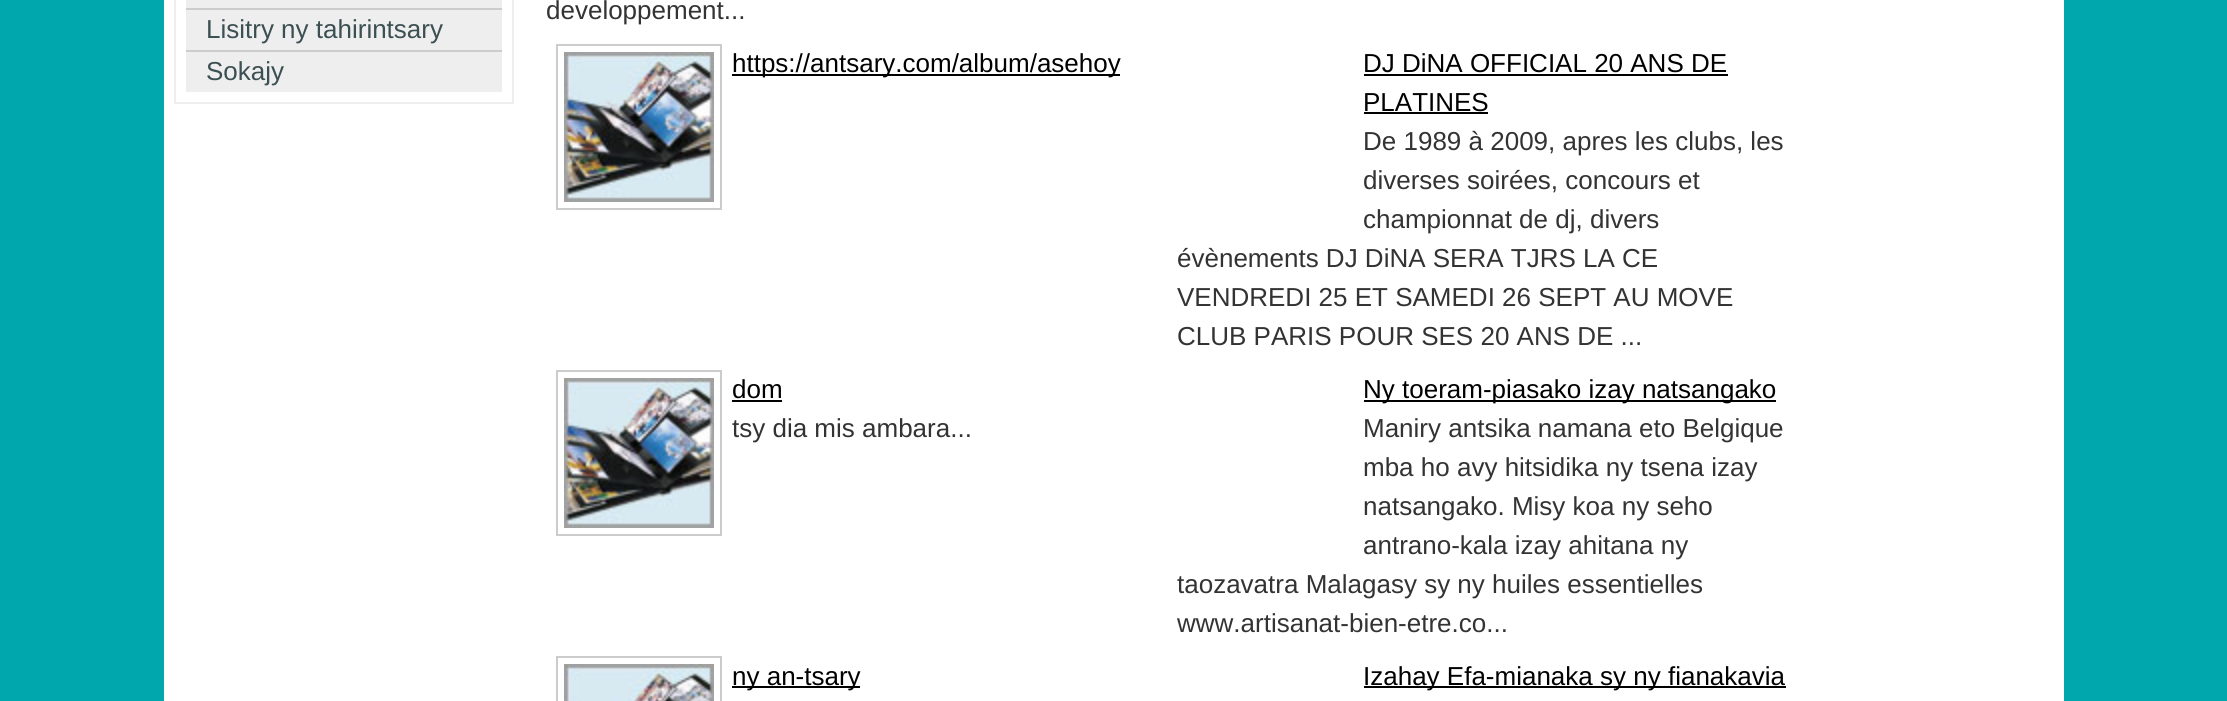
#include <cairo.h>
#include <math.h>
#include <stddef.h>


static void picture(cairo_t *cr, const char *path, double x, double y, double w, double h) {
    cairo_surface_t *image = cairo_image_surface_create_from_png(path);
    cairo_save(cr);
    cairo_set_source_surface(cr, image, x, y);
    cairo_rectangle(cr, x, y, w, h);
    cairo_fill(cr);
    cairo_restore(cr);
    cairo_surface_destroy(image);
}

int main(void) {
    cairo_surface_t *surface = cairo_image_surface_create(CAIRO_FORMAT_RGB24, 2227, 701);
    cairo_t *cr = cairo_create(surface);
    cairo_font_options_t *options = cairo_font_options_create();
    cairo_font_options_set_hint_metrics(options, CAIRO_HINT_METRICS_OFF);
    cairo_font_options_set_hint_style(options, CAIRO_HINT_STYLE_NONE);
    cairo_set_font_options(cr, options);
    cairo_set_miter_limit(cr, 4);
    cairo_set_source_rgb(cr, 0, 0.659, 0.678);
    cairo_paint(cr);
    cairo_set_source_rgb(cr, 1, 1, 1);
    cairo_rectangle(cr, 164, 0, 1900, 701);
    cairo_fill(cr);
    cairo_rectangle(cr, 175, -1, 338, 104);
    cairo_set_source_rgb(cr, 0.933, 0.933, 0.933);
    cairo_stroke(cr);
    cairo_rectangle(cr, 186, 0, 316, 8);
    cairo_fill(cr);
    cairo_rectangle(cr, 186, 10, 316, 40);
    cairo_fill(cr);
    cairo_set_source_rgb(cr, 0.8, 0.8, 0.8);
    cairo_rectangle(cr, 186, 8, 316, 2);
    cairo_fill(cr);
    cairo_select_font_face(cr, "Liberation Sans", CAIRO_FONT_SLANT_NORMAL, CAIRO_FONT_WEIGHT_NORMAL);
    cairo_set_font_size(cr, 26);
    cairo_set_source_rgb(cr, 0.235, 0.31, 0.322);
    cairo_move_to(cr, 206, 38);
    cairo_show_text(cr, "Lisitry ny tahirintsary");
    cairo_set_source_rgb(cr, 0.933, 0.933, 0.933);
    cairo_rectangle(cr, 186, 52, 316, 40);
    cairo_fill(cr);
    cairo_set_source_rgb(cr, 0.8, 0.8, 0.8);
    cairo_rectangle(cr, 186, 50, 316, 2);
    cairo_fill(cr);
    cairo_set_source_rgb(cr, 0.235, 0.31, 0.322);
    cairo_move_to(cr, 206, 80);
    cairo_show_text(cr, "Sokajy");
    cairo_set_source_rgb(cr, 0.2, 0.2, 0.2);
    cairo_move_to(cr, 546, 19);
    cairo_show_text(cr, "developpement...");
    cairo_rectangle(cr, 557, 45, 164, 164);
    cairo_set_source_rgb(cr, 0.8, 0.8, 0.8);
    cairo_stroke(cr);
    picture(cr, "img1.png", 564, 52, 150, 150);
    cairo_set_source_rgb(cr, 0, 0, 0);
    cairo_rectangle(cr, 732, 74, 388, 2);
    cairo_fill(cr);
    cairo_move_to(cr, 732, 72);
    cairo_show_text(cr, "https://antsary.com/album/asehoy");
    cairo_move_to(cr, 1363, 72);
    cairo_show_text(cr, "DJ DiNA OFFICIAL 20 ANS DE");
    cairo_rectangle(cr, 1364, 74, 364, 2);
    cairo_fill(cr);
    cairo_move_to(cr, 1363, 111);
    cairo_show_text(cr, "PLATINES");
    cairo_rectangle(cr, 1364, 112, 124, 2);
    cairo_fill(cr);
    cairo_set_source_rgb(cr, 0.2, 0.2, 0.2);
    cairo_move_to(cr, 1363, 150);
    cairo_show_text(cr, "De 1989 à 2009, apres les clubs, les");
    cairo_move_to(cr, 1363, 189);
    cairo_show_text(cr, "diverses soirées, concours et");
    cairo_move_to(cr, 1363, 228);
    cairo_show_text(cr, "championnat de dj, divers");
    cairo_move_to(cr, 1177, 267);
    cairo_show_text(cr, "évènements DJ DiNA SERA TJRS LA CE");
    cairo_move_to(cr, 1177, 306);
    cairo_show_text(cr, "VENDREDI 25 ET SAMEDI 26 SEPT AU MOVE");
    cairo_move_to(cr, 1177, 345);
    cairo_show_text(cr, "CLUB PARIS POUR SES 20 ANS DE ...");
    cairo_rectangle(cr, 557, 371, 164, 164);
    cairo_set_source_rgb(cr, 0.8, 0.8, 0.8);
    cairo_stroke(cr);
    picture(cr, "img1.png", 564, 378, 150, 150);
    cairo_set_source_rgb(cr, 0, 0, 0);
    cairo_move_to(cr, 732, 398);
    cairo_show_text(cr, "dom");
    cairo_rectangle(cr, 732, 400, 50, 2);
    cairo_fill(cr);
    cairo_set_source_rgb(cr, 0.2, 0.2, 0.2);
    cairo_move_to(cr, 732, 437);
    cairo_show_text(cr, "tsy dia mis ambara...");
    cairo_set_source_rgb(cr, 0, 0, 0);
    cairo_rectangle(cr, 1364, 400, 412, 2);
    cairo_fill(cr);
    cairo_move_to(cr, 1363, 398);
    cairo_show_text(cr, "Ny toeram-piasako izay natsangako");
    cairo_set_source_rgb(cr, 0.2, 0.2, 0.2);
    cairo_move_to(cr, 1363, 437);
    cairo_show_text(cr, "Maniry antsika namana eto Belgique");
    cairo_move_to(cr, 1363, 476);
    cairo_show_text(cr, "mba ho avy hitsidika ny tsena izay");
    cairo_move_to(cr, 1363, 515);
    cairo_show_text(cr, "natsangako. Misy koa ny seho");
    cairo_move_to(cr, 1363, 554);
    cairo_show_text(cr, "antrano-kala izay ahitana ny");
    cairo_move_to(cr, 1177, 593);
    cairo_show_text(cr, "taozavatra Malagasy sy ny huiles essentielles");
    cairo_move_to(cr, 1177, 632);
    cairo_show_text(cr, "www.artisanat-bien-etre.co...");
    cairo_rectangle(cr, 557, 657, 164, 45);
    cairo_set_source_rgb(cr, 0.8, 0.8, 0.8);
    cairo_stroke(cr);
    picture(cr, "img2.png", 564, 664, 150, 37);
    cairo_set_source_rgb(cr, 0, 0, 0);
    cairo_rectangle(cr, 732, 686, 128, 2);
    cairo_fill(cr);
    cairo_move_to(cr, 732, 685);
    cairo_show_text(cr, "ny an-tsary");
    cairo_rectangle(cr, 1364, 686, 422, 2);
    cairo_fill(cr);
    cairo_move_to(cr, 1363, 685);
    cairo_show_text(cr, "Izahay Efa-mianaka sy ny fianakavia");
    cairo_surface_write_to_png(surface, "page.png");
    cairo_font_options_destroy(options);
    cairo_destroy(cr);
    cairo_surface_destroy(surface);
    return 0;
}
